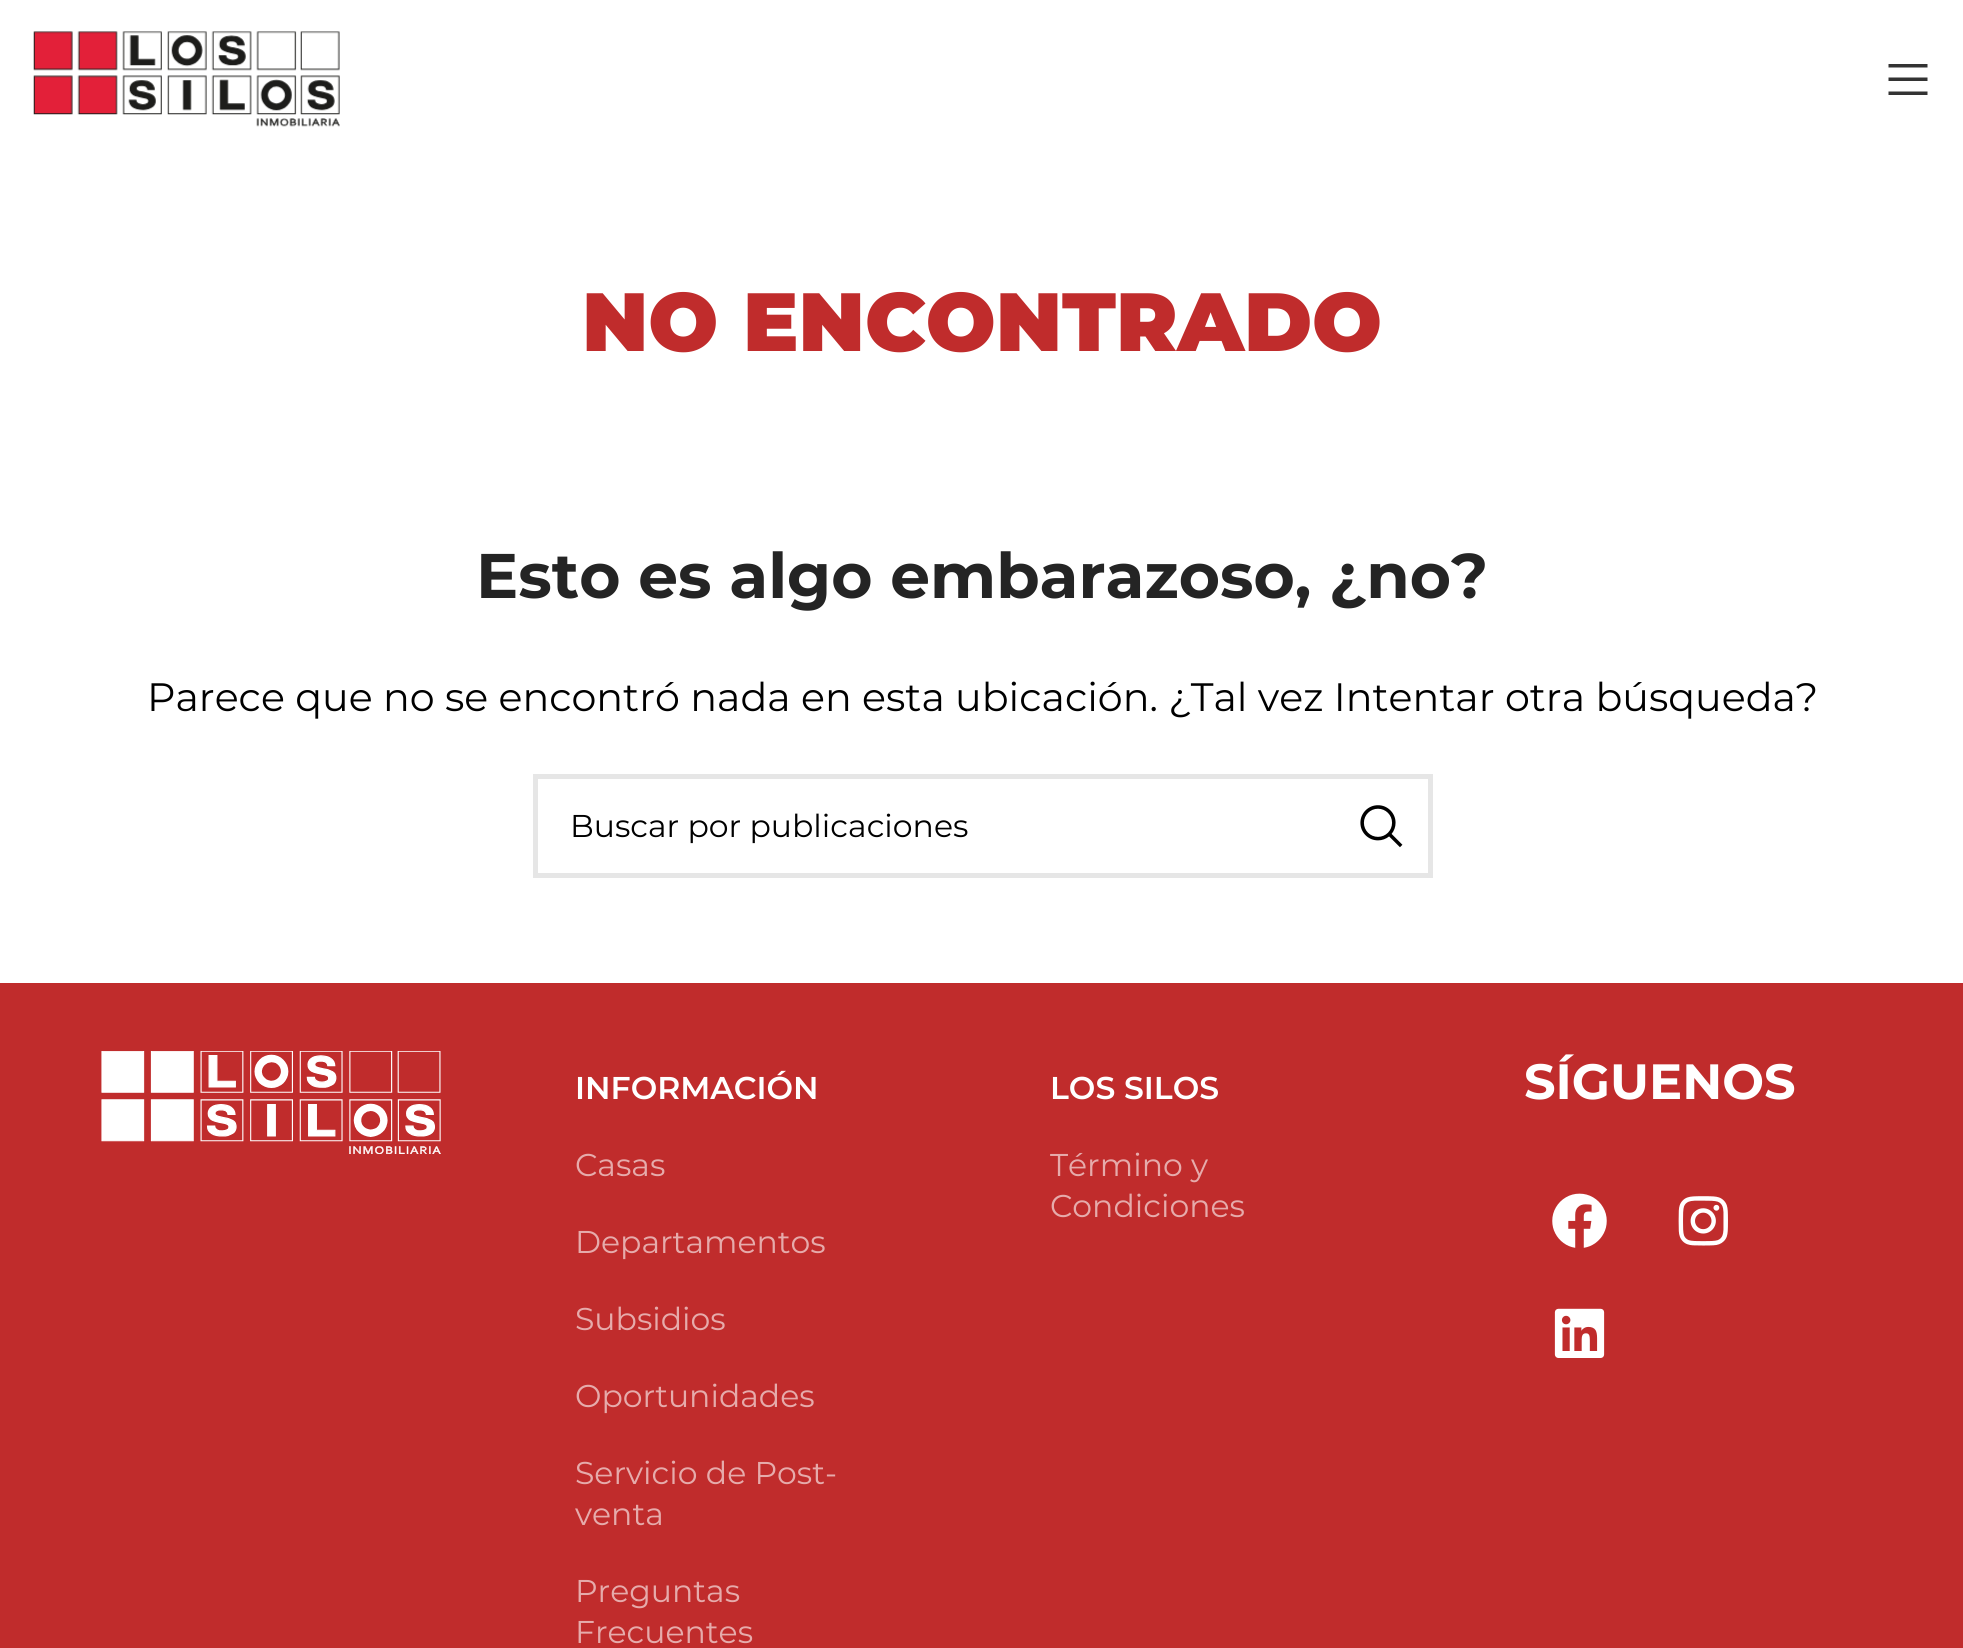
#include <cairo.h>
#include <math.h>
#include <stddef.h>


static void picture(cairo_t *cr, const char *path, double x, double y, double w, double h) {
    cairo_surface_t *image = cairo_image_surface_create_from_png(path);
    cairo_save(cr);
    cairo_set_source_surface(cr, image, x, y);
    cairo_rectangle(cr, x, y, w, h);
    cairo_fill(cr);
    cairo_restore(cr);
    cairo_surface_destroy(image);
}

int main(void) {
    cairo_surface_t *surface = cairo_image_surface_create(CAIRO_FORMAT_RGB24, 1963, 1648);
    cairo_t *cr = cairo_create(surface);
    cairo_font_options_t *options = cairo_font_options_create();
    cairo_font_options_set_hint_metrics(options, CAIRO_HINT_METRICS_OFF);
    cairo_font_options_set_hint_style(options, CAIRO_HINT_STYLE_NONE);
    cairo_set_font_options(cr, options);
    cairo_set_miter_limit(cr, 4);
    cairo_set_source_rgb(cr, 1, 1, 1);
    cairo_paint(cr);
    picture(cr, "img1.png", 33, 31, 307, 96);
    cairo_set_source_rgb(cr, 0.2, 0.2, 0.2);
    cairo_new_path(cr);
    cairo_move_to(cr, 1888.5, 67.5);
    cairo_line_to(cr, 1927.5, 67.5);
    cairo_line_to(cr, 1927.5, 64);
    cairo_line_to(cr, 1888.5, 64);
    cairo_close_path(cr);
    cairo_move_to(cr, 1888.5, 81);
    cairo_line_to(cr, 1927.5, 81);
    cairo_line_to(cr, 1927.5, 77.5);
    cairo_line_to(cr, 1888.5, 77.5);
    cairo_close_path(cr);
    cairo_move_to(cr, 1888.5, 95);
    cairo_line_to(cr, 1927.5, 95);
    cairo_line_to(cr, 1927.5, 91.5);
    cairo_line_to(cr, 1888.5, 91.5);
    cairo_close_path(cr);
    cairo_fill(cr);
    cairo_select_font_face(cr, "Montserrat Black", CAIRO_FONT_SLANT_NORMAL, CAIRO_FONT_WEIGHT_NORMAL);
    cairo_set_font_size(cr, 82.5);
    cairo_set_source_rgb(cr, 0.753, 0.173, 0.173);
    cairo_move_to(cr, 582, 351);
    cairo_show_text(cr, "NO ENCONTRADO");
    cairo_select_font_face(cr, "Montserrat", CAIRO_FONT_SLANT_NORMAL, CAIRO_FONT_WEIGHT_BOLD);
    cairo_set_font_size(cr, 63);
    cairo_set_source_rgb(cr, 0.141, 0.141, 0.141);
    cairo_move_to(cr, 476, 598);
    cairo_show_text(cr, "Esto es algo embarazoso, ¿no?");
    cairo_select_font_face(cr, "Montserrat", CAIRO_FONT_SLANT_NORMAL, CAIRO_FONT_WEIGHT_NORMAL);
    cairo_set_font_size(cr, 39.6);
    cairo_set_source_rgb(cr, 0, 0, 0);
    cairo_move_to(cr, 147, 711);
    cairo_show_text(cr, "Parece que no se encontró nada en esta ubicación. ¿Tal vez Intentar otra búsqueda?");
    cairo_rectangle(cr, 535.5, 776.5, 895, 99);
    cairo_set_source_rgb(cr, 0.902, 0.902, 0.902);
    cairo_set_line_width(cr, 5);
    cairo_stroke(cr);
    cairo_set_font_size(cr, 31.5);
    cairo_set_source_rgb(cr, 0, 0, 0);
    cairo_move_to(cr, 570, 837);
    cairo_show_text(cr, "Buscar por publicaciones");
    picture(cr, "img2.png", 1360, 805, 43, 43);
    cairo_set_source_rgb(cr, 0.753, 0.173, 0.173);
    cairo_rectangle(cr, 0, 983, 1963, 665);
    cairo_fill(cr);
    picture(cr, "img3.png", 101, 1051, 340, 103);
    cairo_select_font_face(cr, "Montserrat SemiBold", CAIRO_FONT_SLANT_NORMAL, CAIRO_FONT_WEIGHT_NORMAL);
    cairo_set_source_rgb(cr, 1, 1, 1);
    cairo_move_to(cr, 575, 1099);
    cairo_show_text(cr, "INFORMACIÓN");
    cairo_select_font_face(cr, "Montserrat", CAIRO_FONT_SLANT_NORMAL, CAIRO_FONT_WEIGHT_NORMAL);
    cairo_set_source_rgb(cr, 0.902, 0.671, 0.671);
    cairo_move_to(cr, 575, 1176);
    cairo_show_text(cr, "Casas");
    cairo_move_to(cr, 575, 1253);
    cairo_show_text(cr, "Departamentos");
    cairo_move_to(cr, 575, 1330);
    cairo_show_text(cr, "Subsidios");
    cairo_move_to(cr, 575, 1407);
    cairo_show_text(cr, "Oportunidades");
    cairo_move_to(cr, 575, 1484);
    cairo_show_text(cr, "Servicio de Post-");
    cairo_move_to(cr, 575, 1525);
    cairo_show_text(cr, "venta");
    cairo_move_to(cr, 575, 1602);
    cairo_show_text(cr, "Preguntas");
    cairo_move_to(cr, 575, 1643);
    cairo_show_text(cr, "Frecuentes");
    cairo_select_font_face(cr, "Montserrat SemiBold", CAIRO_FONT_SLANT_NORMAL, CAIRO_FONT_WEIGHT_NORMAL);
    cairo_set_source_rgb(cr, 1, 1, 1);
    cairo_move_to(cr, 1050, 1099);
    cairo_show_text(cr, "LOS SILOS");
    cairo_select_font_face(cr, "Montserrat", CAIRO_FONT_SLANT_NORMAL, CAIRO_FONT_WEIGHT_NORMAL);
    cairo_set_source_rgb(cr, 0.902, 0.671, 0.671);
    cairo_move_to(cr, 1050, 1176);
    cairo_show_text(cr, "Término y");
    cairo_move_to(cr, 1050, 1217);
    cairo_show_text(cr, "Condiciones");
    cairo_select_font_face(cr, "Montserrat", CAIRO_FONT_SLANT_NORMAL, CAIRO_FONT_WEIGHT_BOLD);
    cairo_set_font_size(cr, 49.5);
    cairo_set_source_rgb(cr, 1, 1, 1);
    cairo_move_to(cr, 1524, 1099);
    cairo_show_text(cr, "SÍGUENOS");
    picture(cr, "img4.png", 1552, 1193, 55, 55);
    picture(cr, "img5.png", 1678, 1196, 50, 50);
    picture(cr, "img6.png", 1554, 1308, 51, 50);
    cairo_surface_write_to_png(surface, "page.png");
    cairo_font_options_destroy(options);
    cairo_destroy(cr);
    cairo_surface_destroy(surface);
    return 0;
}
